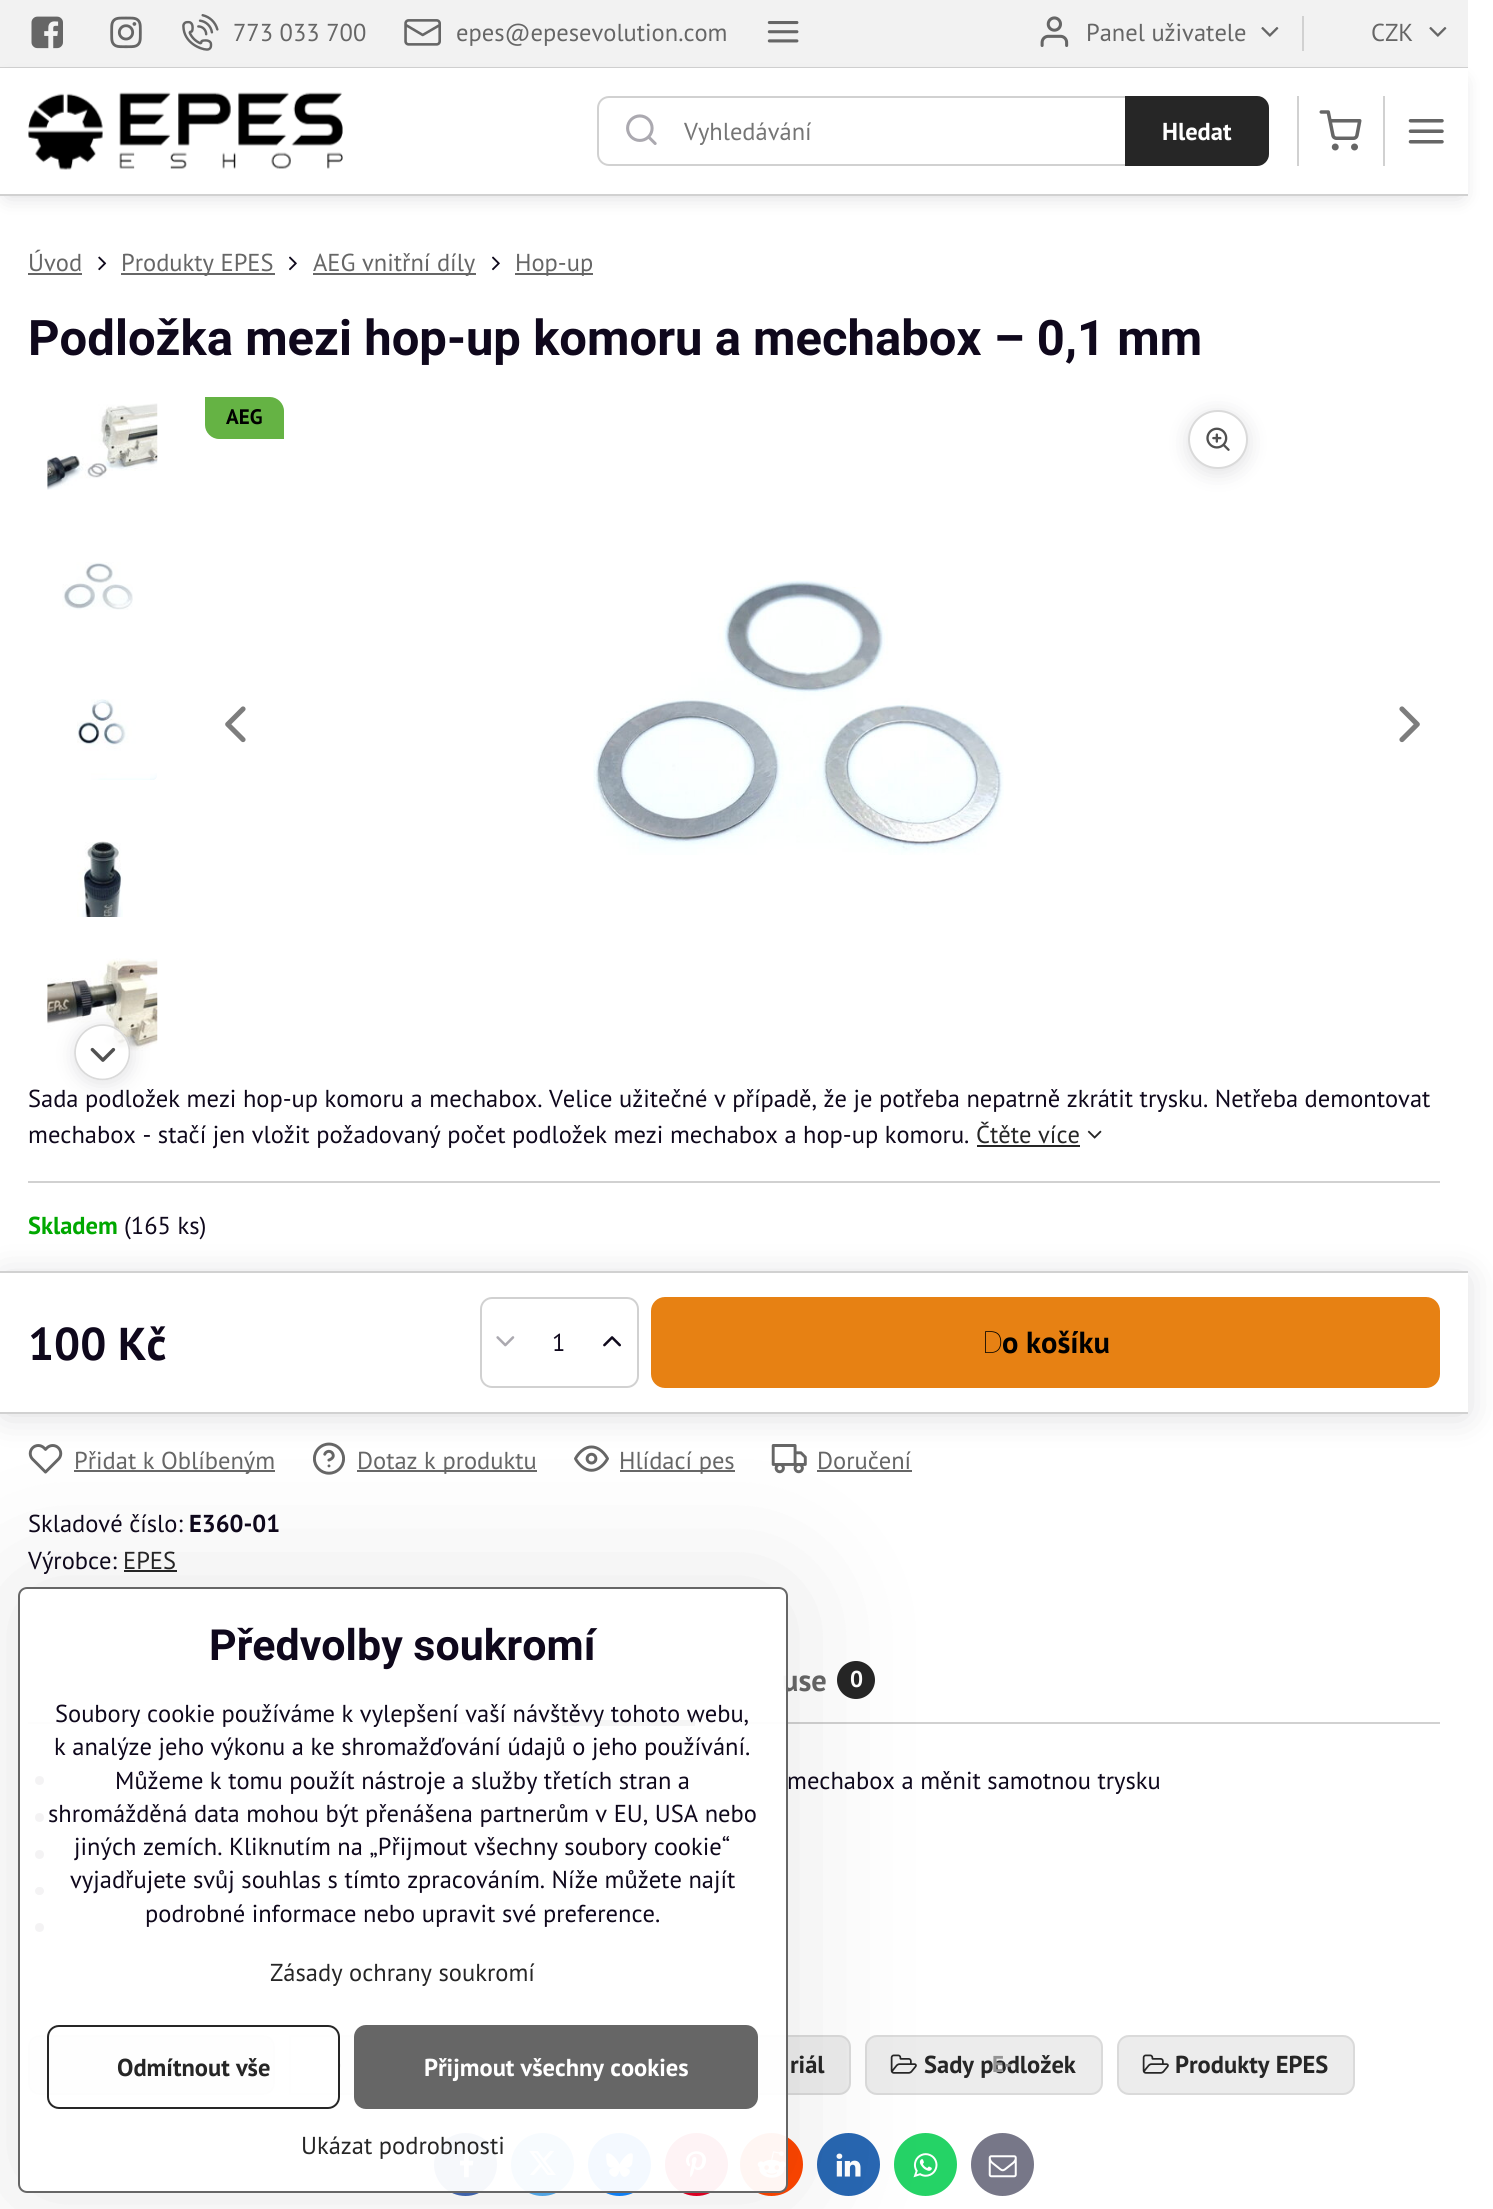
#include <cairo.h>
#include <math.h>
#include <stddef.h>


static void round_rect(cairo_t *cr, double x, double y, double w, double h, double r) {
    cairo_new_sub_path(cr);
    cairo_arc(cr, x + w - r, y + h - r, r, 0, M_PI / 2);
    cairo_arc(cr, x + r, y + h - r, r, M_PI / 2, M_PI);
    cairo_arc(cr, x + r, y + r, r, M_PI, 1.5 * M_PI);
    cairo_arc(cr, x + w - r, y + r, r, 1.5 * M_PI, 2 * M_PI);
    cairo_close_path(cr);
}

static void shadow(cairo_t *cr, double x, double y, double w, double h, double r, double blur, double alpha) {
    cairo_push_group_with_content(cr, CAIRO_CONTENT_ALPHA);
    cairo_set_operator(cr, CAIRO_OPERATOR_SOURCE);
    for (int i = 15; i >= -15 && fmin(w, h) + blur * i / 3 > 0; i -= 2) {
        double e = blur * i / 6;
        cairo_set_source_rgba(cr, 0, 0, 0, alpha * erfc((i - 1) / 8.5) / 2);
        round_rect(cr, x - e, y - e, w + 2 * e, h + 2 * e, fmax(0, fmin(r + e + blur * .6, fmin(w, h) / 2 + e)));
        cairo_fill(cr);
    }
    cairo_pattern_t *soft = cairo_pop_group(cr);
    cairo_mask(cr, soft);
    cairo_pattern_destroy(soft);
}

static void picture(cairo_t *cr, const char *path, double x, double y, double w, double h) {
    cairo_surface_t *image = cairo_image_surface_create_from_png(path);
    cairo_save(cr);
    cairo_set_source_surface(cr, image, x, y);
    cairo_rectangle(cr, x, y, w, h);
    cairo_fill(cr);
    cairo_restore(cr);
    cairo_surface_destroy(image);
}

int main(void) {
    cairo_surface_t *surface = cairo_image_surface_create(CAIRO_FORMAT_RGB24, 1493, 2209);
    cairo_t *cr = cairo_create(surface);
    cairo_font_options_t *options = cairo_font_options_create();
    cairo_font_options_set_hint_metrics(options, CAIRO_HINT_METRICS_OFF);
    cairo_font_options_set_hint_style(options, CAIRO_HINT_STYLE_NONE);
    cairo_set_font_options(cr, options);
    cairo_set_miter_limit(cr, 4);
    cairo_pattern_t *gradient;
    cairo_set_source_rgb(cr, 1, 1, 1);
    cairo_paint(cr);
    cairo_set_source_rgb(cr, 0.949, 0.949, 0.949);
    cairo_rectangle(cr, 0, 0, 1468, 67);
    cairo_fill(cr);
    cairo_set_source_rgb(cr, 0.82, 0.82, 0.82);
    cairo_rectangle(cr, 0, 67, 1468, 1);
    cairo_fill(cr);
    picture(cr, "img1.png", 31, 16, 32, 33);
    picture(cr, "img2.png", 110, 16, 32, 33);
    picture(cr, "img3.png", 182, 14, 37, 37);
    cairo_select_font_face(cr, "PT Sans", CAIRO_FONT_SLANT_NORMAL, CAIRO_FONT_WEIGHT_NORMAL);
    cairo_set_font_size(cr, 24.5);
    cairo_set_source_rgb(cr, 0.4, 0.4, 0.4);
    cairo_move_to(cr, 233, 41);
    cairo_show_text(cr, "773 033 700");
    picture(cr, "img4.png", 404, 19, 37, 27);
    cairo_move_to(cr, 456, 41);
    cairo_show_text(cr, "epes@epesevolution.com");
    picture(cr, "img5.png", 767, 21, 32, 22);
    cairo_set_source_rgb(cr, 0.82, 0.82, 0.82);
    cairo_rectangle(cr, 1302, 16, 2, 35);
    cairo_fill(cr);
    picture(cr, "img6.png", 1040, 16, 29, 31);
    cairo_set_source_rgb(cr, 0.4, 0.4, 0.4);
    cairo_move_to(cr, 1086, 41);
    cairo_show_text(cr, "Panel uživatele");
    picture(cr, "img7.png", 1261, 27, 18, 10);
    cairo_move_to(cr, 1371, 41);
    cairo_show_text(cr, "CZK");
    picture(cr, "img7.png", 1429, 27, 18, 10);
    cairo_set_source_rgb(cr, 0, 0, 0.078);
    shadow(cr, 7, 82, 1454, 114, 0, 10.5, 0.15);
    cairo_set_source_rgb(cr, 1, 1, 1);
    cairo_rectangle(cr, 0, 68, 1468, 126);
    cairo_fill(cr);
    cairo_set_source_rgb(cr, 0.82, 0.82, 0.82);
    cairo_rectangle(cr, 0, 194, 1468, 2);
    cairo_fill(cr);
    picture(cr, "img8.png", 28, 92, 315, 78);
    round_rect(cr, 598, 97, 670, 68, 11);
    cairo_stroke(cr);
    picture(cr, "img9.png", 626, 114, 31, 31);
    cairo_set_source_rgb(cr, 0.459, 0.459, 0.459);
    cairo_move_to(cr, 684, 140);
    cairo_show_text(cr, "Vyhledávání");
    cairo_set_source_rgb(cr, 0.149, 0.149, 0.149);
    cairo_new_path(cr);
    cairo_move_to(cr, 1125, 96);
    cairo_line_to(cr, 1257, 96);
    cairo_curve_to(cr, 1263.5, 96, 1269, 101.5, 1269, 108);
    cairo_line_to(cr, 1269, 154);
    cairo_curve_to(cr, 1269, 160.5, 1263.5, 166, 1257, 166);
    cairo_line_to(cr, 1125, 166);
    cairo_close_path(cr);
    cairo_fill(cr);
    cairo_select_font_face(cr, "PT Sans", CAIRO_FONT_SLANT_NORMAL, CAIRO_FONT_WEIGHT_BOLD);
    cairo_set_source_rgb(cr, 1, 1, 1);
    cairo_move_to(cr, 1162, 140);
    cairo_show_text(cr, "Hledat");
    cairo_set_source_rgb(cr, 0.82, 0.82, 0.82);
    cairo_rectangle(cr, 1297, 96, 2, 70);
    cairo_fill(cr);
    picture(cr, "img10.png", 1319, 110, 43, 41);
    cairo_rectangle(cr, 1383, 96, 2, 70);
    cairo_fill(cr);
    picture(cr, "img11.png", 1408, 119, 36, 25);
    cairo_select_font_face(cr, "PT Sans", CAIRO_FONT_SLANT_NORMAL, CAIRO_FONT_WEIGHT_NORMAL);
    cairo_set_source_rgb(cr, 0.4, 0.4, 0.4);
    cairo_move_to(cr, 28, 271);
    cairo_show_text(cr, "Úvod");
    cairo_rectangle(cr, 28, 273, 54, 2);
    cairo_fill(cr);
    picture(cr, "img12.png", 98, 256, 9, 15);
    cairo_rectangle(cr, 121, 273, 154, 2);
    cairo_fill(cr);
    cairo_move_to(cr, 121, 271);
    cairo_show_text(cr, "Produkty EPES");
    picture(cr, "img13.png", 289, 256, 8, 15);
    cairo_rectangle(cr, 313, 273, 163, 2);
    cairo_fill(cr);
    cairo_move_to(cr, 313, 271);
    cairo_show_text(cr, "AEG vnitřní díly");
    picture(cr, "img13.png", 492, 256, 8, 15);
    cairo_rectangle(cr, 515, 273, 78, 2);
    cairo_fill(cr);
    cairo_move_to(cr, 515, 271);
    cairo_show_text(cr, "Hop-up");
    cairo_select_font_face(cr, "Roboto", CAIRO_FONT_SLANT_NORMAL, CAIRO_FONT_WEIGHT_BOLD);
    cairo_set_font_size(cr, 49);
    cairo_set_source_rgb(cr, 0.059, 0.035, 0.11);
    cairo_move_to(cr, 28, 355);
    cairo_show_text(cr, "Podložka mezi hop-up komoru a mechabox – 0,1 mm");
    cairo_select_font_face(cr, "PT Sans", CAIRO_FONT_SLANT_NORMAL, CAIRO_FONT_WEIGHT_NORMAL);
    cairo_set_font_size(cr, 24.5);
    cairo_move_to(cr, 28, 1107);
    cairo_show_text(cr, "Sada podložek mezi hop-up komoru a mechabox. Velice užitečné v případě, že je potřeba nepatrně zkrátit trysku. Netřeba demontovat");
    cairo_move_to(cr, 28, 1143);
    cairo_show_text(cr, "mechabox - stačí jen vložit požadovaný počet podložek mezi mechabox a hop-up komoru.");
    cairo_set_source_rgb(cr, 0.149, 0.149, 0.149);
    cairo_move_to(cr, 976, 1143);
    cairo_show_text(cr, "Čtěte více");
    cairo_rectangle(cr, 977, 1145, 103, 2);
    cairo_fill(cr);
    picture(cr, "img14.png", 1087, 1130, 15, 9);
    cairo_set_source_rgb(cr, 0.82, 0.82, 0.82);
    cairo_rectangle(cr, 28, 1181, 1412, 2);
    cairo_fill(cr);
    cairo_select_font_face(cr, "PT Sans", CAIRO_FONT_SLANT_NORMAL, CAIRO_FONT_WEIGHT_BOLD);
    cairo_set_source_rgb(cr, 0, 0.659, 0);
    cairo_move_to(cr, 28, 1234);
    cairo_show_text(cr, "Skladem");
    cairo_select_font_face(cr, "PT Sans", CAIRO_FONT_SLANT_NORMAL, CAIRO_FONT_WEIGHT_NORMAL);
    cairo_set_source_rgb(cr, 0.059, 0.035, 0.11);
    cairo_move_to(cr, 124, 1234);
    cairo_show_text(cr, "(165 ks)");
    picture(cr, "img17.png", 28, 1444, 35, 30);
    cairo_set_source_rgb(cr, 0.4, 0.4, 0.4);
    cairo_rectangle(cr, 74, 1470, 201, 2);
    cairo_fill(cr);
    picture(cr, "img18.png", 313, 1442, 32, 33);
    cairo_rectangle(cr, 357, 1470, 180, 2);
    cairo_fill(cr);
    picture(cr, "img19.png", 574, 1445, 35, 27);
    cairo_rectangle(cr, 620, 1470, 115, 2);
    cairo_fill(cr);
    picture(cr, "img20.png", 771, 1444, 36, 30);
    cairo_rectangle(cr, 817, 1470, 95, 2);
    cairo_fill(cr);
    cairo_save(cr);
    cairo_set_fill_rule(cr, CAIRO_FILL_RULE_EVEN_ODD);
    cairo_new_path(cr);
    cairo_move_to(cr, 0, 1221);
    cairo_line_to(cr, 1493, 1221);
    cairo_line_to(cr, 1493, 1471);
    cairo_line_to(cr, 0, 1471);
    cairo_close_path(cr);
    cairo_move_to(cr, 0, 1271);
    cairo_line_to(cr, 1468, 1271);
    cairo_line_to(cr, 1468, 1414);
    cairo_line_to(cr, 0, 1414);
    cairo_close_path(cr);
    cairo_clip(cr);
    cairo_set_source_rgb(cr, 0, 0, 0.078);
    shadow(cr, 4, 1278, 1461, 136, 0, 18.5, 0.15);
    cairo_restore(cr);
    cairo_set_source_rgb(cr, 0.82, 0.82, 0.82);
    cairo_rectangle(cr, 0, 1271, 1468, 2);
    cairo_fill(cr);
    cairo_rectangle(cr, 0, 1412, 1468, 2);
    cairo_fill(cr);
    cairo_select_font_face(cr, "PT Sans", CAIRO_FONT_SLANT_NORMAL, CAIRO_FONT_WEIGHT_BOLD);
    cairo_set_font_size(cr, 46);
    cairo_set_source_rgb(cr, 0.059, 0.035, 0.11);
    cairo_move_to(cr, 28, 1360);
    cairo_show_text(cr, "100 Kč");
    round_rect(cr, 481, 1298, 157, 89, 11);
    cairo_set_source_rgb(cr, 0.82, 0.82, 0.82);
    cairo_stroke(cr);
    picture(cr, "img15.png", 496, 1336, 19, 11);
    cairo_select_font_face(cr, "PT Sans", CAIRO_FONT_SLANT_NORMAL, CAIRO_FONT_WEIGHT_NORMAL);
    cairo_set_font_size(cr, 24.5);
    cairo_set_source_rgb(cr, 0.059, 0.035, 0.11);
    cairo_move_to(cr, 552, 1351);
    cairo_show_text(cr, "1");
    picture(cr, "img16.png", 603, 1336, 18, 11);
    cairo_set_source_rgb(cr, 0.906, 0.506, 0.075);
    round_rect(cr, 651, 1297, 789, 91, 14);
    cairo_fill(cr);
    cairo_select_font_face(cr, "Noto Sans Thin", CAIRO_FONT_SLANT_NORMAL, CAIRO_FONT_WEIGHT_NORMAL);
    cairo_set_font_size(cr, 30.5);
    cairo_set_source_rgb(cr, 0, 0, 0);
    cairo_move_to(cr, 982, 1353);
    cairo_show_text(cr, "D");
    cairo_select_font_face(cr, "PT Sans", CAIRO_FONT_SLANT_NORMAL, CAIRO_FONT_WEIGHT_BOLD);
    cairo_move_to(cr, 1002, 1353);
    cairo_show_text(cr, "o košíku");
    cairo_select_font_face(cr, "PT Sans", CAIRO_FONT_SLANT_NORMAL, CAIRO_FONT_WEIGHT_NORMAL);
    cairo_set_font_size(cr, 24.5);
    cairo_set_source_rgb(cr, 0.4, 0.4, 0.4);
    cairo_move_to(cr, 74, 1469);
    cairo_show_text(cr, "Přidat k Oblíbeným");
    cairo_move_to(cr, 357, 1469);
    cairo_show_text(cr, "Dotaz k produktu");
    cairo_move_to(cr, 619, 1469);
    cairo_show_text(cr, "Hlídací pes");
    cairo_move_to(cr, 817, 1469);
    cairo_show_text(cr, "Doručení");
    cairo_set_source_rgb(cr, 0.059, 0.035, 0.11);
    cairo_move_to(cr, 28, 1532);
    cairo_show_text(cr, "Skladové číslo:");
    cairo_select_font_face(cr, "PT Sans", CAIRO_FONT_SLANT_NORMAL, CAIRO_FONT_WEIGHT_BOLD);
    cairo_move_to(cr, 189, 1532);
    cairo_show_text(cr, "E360-01");
    cairo_select_font_face(cr, "PT Sans", CAIRO_FONT_SLANT_NORMAL, CAIRO_FONT_WEIGHT_NORMAL);
    cairo_move_to(cr, 28, 1569);
    cairo_show_text(cr, "Výrobce:");
    cairo_set_source_rgb(cr, 0.149, 0.149, 0.149);
    cairo_move_to(cr, 123, 1569);
    cairo_show_text(cr, "EPES");
    cairo_rectangle(cr, 124, 1570, 53, 2);
    cairo_fill(cr);
    picture(cr, "img21.png", 47, 403, 111, 87);
    picture(cr, "img22.png", 62, 562, 71, 48);
    picture(cr, "img23.png", 77, 699, 80, 81);
    picture(cr, "img24.png", 77, 841, 46, 76);
    picture(cr, "img25.png", 47, 958, 111, 93);
    cairo_save(cr);
    cairo_set_fill_rule(cr, CAIRO_FILL_RULE_EVEN_ODD);
    cairo_new_path(cr);
    cairo_move_to(cr, 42, 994);
    cairo_line_to(cr, 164, 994);
    cairo_line_to(cr, 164, 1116);
    cairo_line_to(cr, 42, 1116);
    cairo_close_path(cr);
    cairo_move_to(cr, 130.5, 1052.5);
    cairo_curve_to(cr, 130.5, 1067.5, 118, 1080.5, 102.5, 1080.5);
    cairo_curve_to(cr, 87, 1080.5, 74.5, 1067.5, 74.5, 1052.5);
    cairo_curve_to(cr, 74.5, 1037, 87, 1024.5, 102.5, 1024.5);
    cairo_curve_to(cr, 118, 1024.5, 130.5, 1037, 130.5, 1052.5);
    cairo_close_path(cr);
    cairo_clip(cr);
    cairo_set_source_rgb(cr, 0, 0, 0.078);
    shadow(cr, 75, 1027, 56, 56, 28, 10.5, 0.12);
    cairo_restore(cr);
    cairo_set_source_rgba(cr, 1, 1, 1, 0.8);
    cairo_new_path(cr);
    cairo_move_to(cr, 130, 1052);
    cairo_curve_to(cr, 130, 1068, 118, 1080, 102, 1080);
    cairo_curve_to(cr, 87, 1080, 74, 1068, 74, 1052);
    cairo_curve_to(cr, 74, 1037, 87, 1024, 102, 1024);
    cairo_curve_to(cr, 118, 1024, 130, 1037, 130, 1052);
    cairo_close_path(cr);
    cairo_fill(cr);
    cairo_new_path(cr);
    cairo_move_to(cr, 129.5, 1052.5);
    cairo_curve_to(cr, 129.5, 1067.5, 117.5, 1079.5, 102.5, 1079.5);
    cairo_curve_to(cr, 87.5, 1079.5, 75, 1067.5, 75, 1052.5);
    cairo_curve_to(cr, 75, 1037.5, 87.5, 1025, 102.5, 1025);
    cairo_curve_to(cr, 117.5, 1025, 129.5, 1037.5, 129.5, 1052.5);
    cairo_close_path(cr);
    cairo_set_source_rgba(cr, 0.82, 0.82, 0.82, 0.8);
    cairo_set_line_width(cr, 1.8);
    cairo_stroke(cr);
    picture(cr, "img26.png", 90, 1047, 26, 15);
    cairo_set_source_rgb(cr, 0.396, 0.702, 0.267);
    cairo_new_path(cr);
    cairo_move_to(cr, 205, 397);
    cairo_line_to(cr, 270, 397);
    cairo_curve_to(cr, 277.5, 397, 284, 403.5, 284, 411);
    cairo_line_to(cr, 284, 439);
    cairo_line_to(cr, 219, 439);
    cairo_curve_to(cr, 211.5, 439, 205, 432.5, 205, 425);
    cairo_close_path(cr);
    cairo_fill(cr);
    cairo_select_font_face(cr, "PT Sans", CAIRO_FONT_SLANT_NORMAL, CAIRO_FONT_WEIGHT_BOLD);
    cairo_set_font_size(cr, 21);
    cairo_set_source_rgb(cr, 0, 0, 0);
    cairo_move_to(cr, 226, 424);
    cairo_show_text(cr, "AEG");
    cairo_set_source_rgb(cr, 0.2, 0.2, 0.263);
    shadow(cr, 1188, 413, 60, 60, 30, 10.5, 0.15);
    cairo_set_source_rgb(cr, 1, 1, 1);
    round_rect(cr, 1189, 411, 58, 57, 28.5);
    cairo_fill_preserve(cr);
    cairo_set_source_rgb(cr, 0.855, 0.855, 0.855);
    cairo_set_line_width(cr, 2);
    cairo_stroke(cr);
    picture(cr, "img27.png", 1206, 427, 24, 24);
    picture(cr, "img28.png", 593, 580, 411, 275);
    picture(cr, "img29.png", 225, 706, 21, 37);
    picture(cr, "img30.png", 1399, 706, 21, 37);
    cairo_set_source_rgb(cr, 0.82, 0.82, 0.82);
    cairo_rectangle(cr, 28, 1722, 1412, 2);
    cairo_fill(cr);
    cairo_set_font_size(cr, 30.5);
    cairo_set_source_rgb(cr, 0.4, 0.4, 0.4);
    cairo_move_to(cr, 782, 1691);
    cairo_show_text(cr, "use");
    cairo_set_source_rgb(cr, 0.149, 0.149, 0.149);
    cairo_new_path(cr);
    cairo_arc(cr, 856, 1680, 19, 0, 2 * M_PI);
    cairo_fill(cr);
    cairo_set_font_size(cr, 23);
    cairo_set_source_rgb(cr, 1, 1, 1);
    cairo_move_to(cr, 850, 1687);
    cairo_show_text(cr, "0");
    cairo_set_source_rgb(cr, 0.149, 0.149, 0.149);
    cairo_new_path(cr);
    cairo_move_to(cr, 562, 1722);
    cairo_line_to(cr, 562, 1726);
    cairo_line_to(cr, 695, 1726);
    cairo_line_to(cr, 695, 1642);
    cairo_line_to(cr, 695, 1722);
    cairo_close_path(cr);
    cairo_fill(cr);
    gradient = cairo_pattern_create_radial(0, 0, 0, 0, 0, 1);
    cairo_pattern_set_matrix(gradient, &(cairo_matrix_t){1.0 / 67, 0, 0, 1.0 / 28, -1.0 * 628 / 67, -1.0 * 1722 / 28});
    cairo_pattern_add_color_stop_rgba(gradient, 0, 0.922, 0.922, 0.922, 1);
    cairo_pattern_add_color_stop_rgba(gradient, 1, 1, 1, 1, 1);
    cairo_set_source(cr, gradient);
    cairo_pattern_destroy(gradient);
    cairo_rectangle(cr, 570, 1698, 116, 22);
    cairo_fill(cr);
    cairo_set_source_rgb(cr, 0.149, 0.149, 0.149);
    cairo_rectangle(cr, 562, 1720, 133, 2);
    cairo_fill(cr);
    cairo_set_source_rgb(cr, 0.059, 0.035, 0.11);
    cairo_arc(cr, 39.5, 1780.5, 4.5, 0, 2 * M_PI);
    cairo_fill(cr);
    cairo_select_font_face(cr, "PT Sans", CAIRO_FONT_SLANT_NORMAL, CAIRO_FONT_WEIGHT_NORMAL);
    cairo_set_font_size(cr, 24.5);
    cairo_move_to(cr, 787, 1789);
    cairo_show_text(cr, "mechabox a měnit samotnou trysku");
    cairo_new_path(cr);
    cairo_arc(cr, 39.5, 1817.5, 4.5, 0, 2 * M_PI);
    cairo_fill(cr);
    cairo_arc(cr, 39.5, 1854.5, 4.5, 0, 2 * M_PI);
    cairo_fill(cr);
    round_rect(cr, 35, 1887, 9, 8, 4);
    cairo_fill(cr);
    cairo_arc(cr, 39.5, 1927.5, 4.5, 0, 2 * M_PI);
    cairo_fill(cr);
    cairo_set_source_rgb(cr, 0.922, 0.922, 0.922);
    round_rect(cr, 28, 2035, 247, 60, 12);
    cairo_fill(cr);
    round_rect(cr, 29, 2036, 245, 58, 11);
    cairo_set_source_rgba(cr, 0.149, 0.149, 0.149, 0.09);
    cairo_stroke(cr);
    cairo_set_source_rgb(cr, 0.922, 0.922, 0.922);
    cairo_rectangle(cr, 339, 2035, 16, 60);
    cairo_fill(cr);
    cairo_rectangle(cr, 290, 2036, 161, 58);
    cairo_set_source_rgba(cr, 0.149, 0.149, 0.149, 0.09);
    cairo_stroke(cr);
    picture(cr, "img31.png", 340, 2063, 2, 5);
    cairo_set_source_rgb(cr, 0.922, 0.922, 0.922);
    round_rect(cr, 466, 2035, 385, 60, 12);
    cairo_fill(cr);
    round_rect(cr, 467, 2036, 383, 58, 11);
    cairo_set_source_rgba(cr, 0.149, 0.149, 0.149, 0.09);
    cairo_stroke(cr);
    cairo_select_font_face(cr, "PT Sans", CAIRO_FONT_SLANT_NORMAL, CAIRO_FONT_WEIGHT_BOLD);
    cairo_set_source_rgb(cr, 0.149, 0.149, 0.149);
    cairo_move_to(cr, 790, 2073);
    cairo_show_text(cr, "riál");
    cairo_set_source_rgb(cr, 0.922, 0.922, 0.922);
    round_rect(cr, 865, 2035, 238, 60, 12);
    cairo_fill(cr);
    round_rect(cr, 866, 2036, 236, 58, 11);
    cairo_set_source_rgba(cr, 0.149, 0.149, 0.149, 0.09);
    cairo_stroke(cr);
    picture(cr, "img32.png", 890, 2054, 27, 20);
    cairo_set_source_rgb(cr, 0.149, 0.149, 0.149);
    cairo_move_to(cr, 924, 2073);
    cairo_show_text(cr, "Sady podložek");
    cairo_set_source_rgb(cr, 0.922, 0.922, 0.922);
    round_rect(cr, 1117, 2035, 238, 60, 12);
    cairo_fill(cr);
    round_rect(cr, 1118, 2036, 236, 58, 11);
    cairo_set_source_rgba(cr, 0.149, 0.149, 0.149, 0.09);
    cairo_stroke(cr);
    picture(cr, "img32.png", 1142, 2054, 27, 20);
    cairo_set_source_rgb(cr, 0.149, 0.149, 0.149);
    cairo_move_to(cr, 1175, 2073);
    cairo_show_text(cr, "Produkty EPES");
    cairo_set_source_rgb(cr, 0.467, 0.467, 0.533);
    cairo_new_path(cr);
    cairo_arc(cr, 1002.5, 2164.5, 31.5, 0, 2 * M_PI);
    cairo_fill(cr);
    cairo_set_font_size(cr, 23);
    cairo_set_source_rgb(cr, 0.576, 0.576, 0.576);
    cairo_move_to(cr, 992, 2072);
    cairo_show_text(cr, "E-");
    picture(cr, "img33.png", 988, 2155, 29, 23);
    cairo_set_source_rgb(cr, 0.259, 0.404, 0.698);
    cairo_arc(cr, 465.5, 2164.5, 31.5, 0, 2 * M_PI);
    cairo_fill(cr);
    picture(cr, "img34.png", 460, 2151, 14, 27);
    cairo_set_source_rgb(cr, 0.333, 0.675, 0.933);
    cairo_arc(cr, 542.5, 2164.5, 31.5, 0, 2 * M_PI);
    cairo_fill(cr);
    picture(cr, "img35.png", 529, 2151, 27, 24);
    cairo_set_source_rgb(cr, 0.067, 0.522, 0.996);
    cairo_arc(cr, 619.5, 2164.5, 31.5, 0, 2 * M_PI);
    cairo_fill(cr);
    picture(cr, "img36.png", 606, 2153, 27, 24);
    cairo_set_source_rgb(cr, 0.902, 0, 0.137);
    cairo_arc(cr, 696.5, 2164.5, 31.5, 0, 2 * M_PI);
    cairo_fill(cr);
    picture(cr, "img37.png", 686, 2151, 20, 27);
    cairo_set_source_rgb(cr, 1, 0.271, 0);
    cairo_arc(cr, 771.5, 2164.5, 31.5, 0, 2 * M_PI);
    cairo_fill(cr);
    picture(cr, "img38.png", 757, 2151, 29, 27);
    cairo_set_source_rgb(cr, 0.157, 0.404, 0.698);
    cairo_arc(cr, 848.5, 2164.5, 31.5, 0, 2 * M_PI);
    cairo_fill(cr);
    picture(cr, "img39.png", 836, 2153, 25, 24);
    cairo_set_source_rgb(cr, 0.145, 0.827, 0.4);
    cairo_arc(cr, 925.5, 2164.5, 31.5, 0, 2 * M_PI);
    cairo_fill(cr);
    picture(cr, "img40.png", 913, 2153, 25, 25);
    cairo_save(cr);
    cairo_set_fill_rule(cr, CAIRO_FILL_RULE_EVEN_ODD);
    cairo_new_path(cr);
    cairo_move_to(cr, 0, 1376);
    cairo_line_to(cr, 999, 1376);
    cairo_line_to(cr, 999, 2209);
    cairo_line_to(cr, 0, 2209);
    cairo_close_path(cr);
    cairo_move_to(cr, 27, 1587);
    cairo_line_to(cr, 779, 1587);
    cairo_curve_to(cr, 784, 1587, 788, 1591, 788, 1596);
    cairo_line_to(cr, 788, 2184);
    cairo_curve_to(cr, 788, 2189, 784, 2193, 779, 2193);
    cairo_line_to(cr, 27, 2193);
    cairo_curve_to(cr, 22, 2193, 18, 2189, 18, 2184);
    cairo_line_to(cr, 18, 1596);
    cairo_curve_to(cr, 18, 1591, 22, 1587, 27, 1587);
    cairo_close_path(cr);
    cairo_clip(cr);
    cairo_set_source_rgb(cr, 0, 0, 0);
    shadow(cr, 18, 1587, 770, 606, 9, 70, 0.1);
    cairo_restore(cr);
    cairo_set_source_rgba(cr, 1, 1, 1, 0.95);
    round_rect(cr, 19, 1588, 768, 604, 8);
    cairo_fill_preserve(cr);
    cairo_set_source_rgb(cr, 0.4, 0.4, 0.4);
    cairo_stroke(cr);
    cairo_select_font_face(cr, "Roboto", CAIRO_FONT_SLANT_NORMAL, CAIRO_FONT_WEIGHT_BOLD);
    cairo_set_font_size(cr, 42.9);
    cairo_set_source_rgb(cr, 0.059, 0.035, 0.11);
    cairo_move_to(cr, 209, 1660);
    cairo_show_text(cr, "Předvolby soukromí");
    cairo_select_font_face(cr, "PT Sans", CAIRO_FONT_SLANT_NORMAL, CAIRO_FONT_WEIGHT_NORMAL);
    cairo_set_font_size(cr, 24.5);
    cairo_move_to(cr, 55, 1722);
    cairo_show_text(cr, "Soubory cookie používáme k vylepšení vaší návštěvy tohoto webu,");
    cairo_move_to(cr, 54, 1755);
    cairo_show_text(cr, "k analýze jeho výkonu a ke shromažďování údajů o jeho používání.");
    cairo_move_to(cr, 115, 1789);
    cairo_show_text(cr, "Můžeme k tomu použít nástroje a služby třetích stran a");
    cairo_move_to(cr, 48, 1822);
    cairo_show_text(cr, "shromážděná data mohou být přenášena partnerům v EU, USA nebo");
    cairo_move_to(cr, 74, 1855);
    cairo_show_text(cr, "jiných zemích. Kliknutím na „Přijmout všechny soubory cookie“");
    cairo_move_to(cr, 70, 1888);
    cairo_show_text(cr, "vyjadřujete svůj souhlas s tímto zpracováním. Níže můžete najít");
    cairo_move_to(cr, 145, 1922);
    cairo_show_text(cr, "podrobné informace nebo upravit své preference.");
    cairo_set_source_rgb(cr, 0.149, 0.149, 0.149);
    cairo_move_to(cr, 270, 1981);
    cairo_show_text(cr, "Zásady ochrany soukromí");
    round_rect(cr, 48, 2026, 291, 82, 11);
    cairo_stroke(cr);
    cairo_select_font_face(cr, "PT Sans", CAIRO_FONT_SLANT_NORMAL, CAIRO_FONT_WEIGHT_BOLD);
    cairo_move_to(cr, 117, 2076);
    cairo_show_text(cr, "Odmítnout vše");
    cairo_set_source_rgb(cr, 0.4, 0.4, 0.4);
    round_rect(cr, 354, 2025, 404, 84, 12);
    cairo_fill(cr);
    cairo_set_source_rgb(cr, 1, 1, 1);
    cairo_move_to(cr, 424, 2076);
    cairo_show_text(cr, "Přijmout všechny cookies");
    cairo_select_font_face(cr, "PT Sans", CAIRO_FONT_SLANT_NORMAL, CAIRO_FONT_WEIGHT_NORMAL);
    cairo_set_source_rgb(cr, 0.149, 0.149, 0.149);
    cairo_move_to(cr, 301, 2154);
    cairo_show_text(cr, "Ukázat podrobnosti");
    cairo_surface_write_to_png(surface, "page.png");
    cairo_font_options_destroy(options);
    cairo_destroy(cr);
    cairo_surface_destroy(surface);
    return 0;
}
